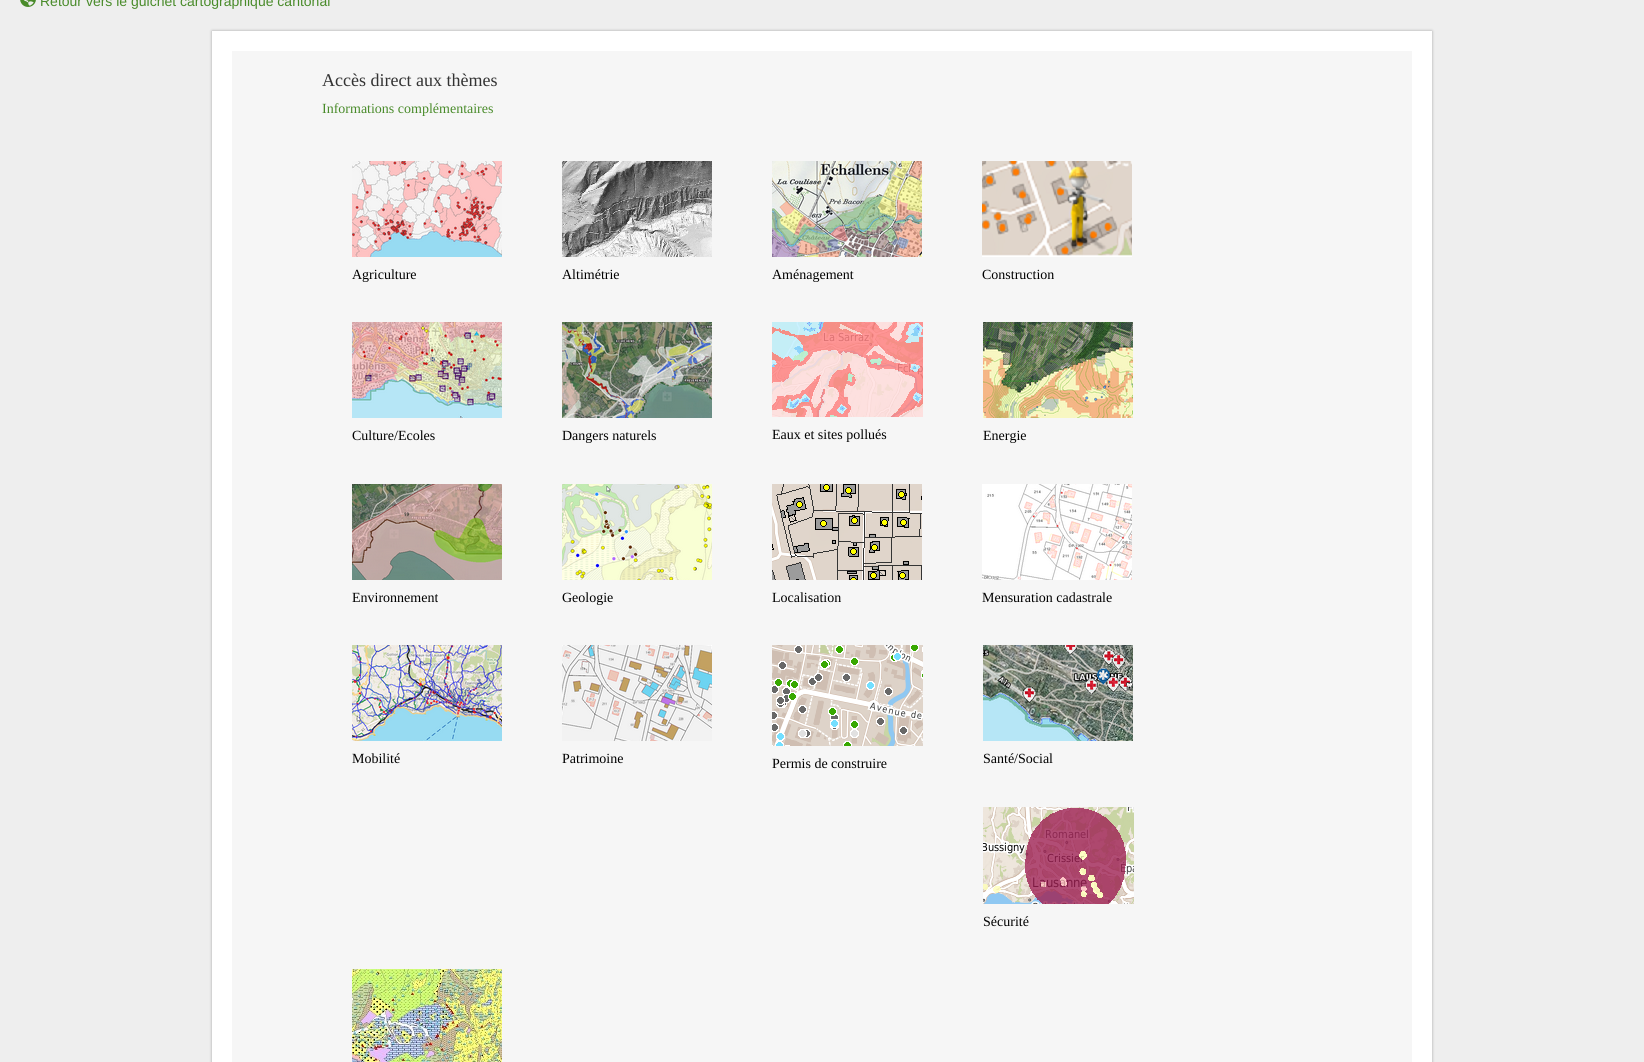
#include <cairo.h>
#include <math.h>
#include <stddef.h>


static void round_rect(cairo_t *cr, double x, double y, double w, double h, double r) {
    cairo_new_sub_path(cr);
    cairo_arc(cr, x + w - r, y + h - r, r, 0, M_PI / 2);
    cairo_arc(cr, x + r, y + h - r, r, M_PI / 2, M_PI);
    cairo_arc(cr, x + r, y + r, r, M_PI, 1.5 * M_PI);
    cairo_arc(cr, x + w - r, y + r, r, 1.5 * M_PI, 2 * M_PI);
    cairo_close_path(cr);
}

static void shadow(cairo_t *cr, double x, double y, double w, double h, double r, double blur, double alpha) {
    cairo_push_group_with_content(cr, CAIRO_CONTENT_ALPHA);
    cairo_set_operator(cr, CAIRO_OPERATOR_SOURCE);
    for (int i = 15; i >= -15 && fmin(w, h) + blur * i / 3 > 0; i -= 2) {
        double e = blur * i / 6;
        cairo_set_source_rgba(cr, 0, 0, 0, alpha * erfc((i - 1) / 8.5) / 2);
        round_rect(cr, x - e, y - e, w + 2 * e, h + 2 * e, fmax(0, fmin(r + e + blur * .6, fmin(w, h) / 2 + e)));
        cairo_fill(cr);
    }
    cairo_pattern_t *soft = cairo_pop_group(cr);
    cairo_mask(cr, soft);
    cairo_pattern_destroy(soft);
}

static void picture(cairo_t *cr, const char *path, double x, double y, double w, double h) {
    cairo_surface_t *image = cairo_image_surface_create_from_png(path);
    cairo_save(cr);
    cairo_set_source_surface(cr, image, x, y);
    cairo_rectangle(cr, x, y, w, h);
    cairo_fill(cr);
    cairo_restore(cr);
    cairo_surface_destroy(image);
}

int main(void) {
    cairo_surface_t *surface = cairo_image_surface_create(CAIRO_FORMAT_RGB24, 1644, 1062);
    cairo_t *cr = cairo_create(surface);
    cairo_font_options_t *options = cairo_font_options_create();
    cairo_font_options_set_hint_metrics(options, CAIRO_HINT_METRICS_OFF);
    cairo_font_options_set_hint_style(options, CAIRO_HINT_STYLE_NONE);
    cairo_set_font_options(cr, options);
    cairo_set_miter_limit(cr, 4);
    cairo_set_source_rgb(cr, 0.933, 0.933, 0.933);
    cairo_paint(cr);
    picture(cr, "img1.png", 20, 0, 16, 7);
    cairo_select_font_face(cr, "Liberation Sans", CAIRO_FONT_SLANT_NORMAL, CAIRO_FONT_WEIGHT_NORMAL);
    cairo_set_font_size(cr, 14);
    cairo_set_source_rgb(cr, 0.286, 0.545, 0.165);
    cairo_move_to(cr, 40, 6);
    cairo_show_text(cr, "Retour vers le guichet cartographique cantonal");
    cairo_set_source_rgb(cr, 0, 0, 0);
    shadow(cr, 212, 31, 1220, 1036, 0, 1.5, 0.3);
    cairo_set_source_rgb(cr, 1, 1, 1);
    cairo_rectangle(cr, 212, 31, 1220, 1031);
    cairo_fill(cr);
    cairo_set_source_rgb(cr, 0.961, 0.961, 0.961);
    cairo_rectangle(cr, 232, 51, 1180, 1011);
    cairo_fill(cr);
    cairo_select_font_face(cr, "Liberation Serif", CAIRO_FONT_SLANT_NORMAL, CAIRO_FONT_WEIGHT_NORMAL);
    cairo_set_font_size(cr, 18);
    cairo_set_source_rgb(cr, 0.2, 0.2, 0.2);
    cairo_move_to(cr, 322, 86);
    cairo_show_text(cr, "Accès direct aux thèmes");
    cairo_set_font_size(cr, 14);
    cairo_set_source_rgb(cr, 0.286, 0.545, 0.165);
    cairo_move_to(cr, 322, 113);
    cairo_show_text(cr, "Informations complémentaires");
    picture(cr, "img2.png", 352, 161, 150, 96);
    cairo_set_source_rgb(cr, 0, 0, 0);
    cairo_move_to(cr, 352, 279);
    cairo_show_text(cr, "Agriculture");
    picture(cr, "img3.png", 562, 161, 150, 96);
    cairo_move_to(cr, 562, 279);
    cairo_show_text(cr, "Altimétrie");
    picture(cr, "img4.png", 772, 161, 150, 96);
    cairo_move_to(cr, 772, 279);
    cairo_show_text(cr, "Aménagement");
    picture(cr, "img5.png", 982, 161, 150, 96);
    cairo_move_to(cr, 982, 279);
    cairo_show_text(cr, "Construction");
    picture(cr, "img6.png", 352, 322, 150, 96);
    cairo_move_to(cr, 352, 440);
    cairo_show_text(cr, "Culture/Ecoles");
    picture(cr, "img7.png", 562, 322, 150, 96);
    cairo_move_to(cr, 562, 440);
    cairo_show_text(cr, "Dangers naturels");
    picture(cr, "img8.png", 772, 322, 151, 95);
    cairo_move_to(cr, 772, 439);
    cairo_show_text(cr, "Eaux et sites pollués");
    picture(cr, "img9.png", 983, 322, 150, 96);
    cairo_move_to(cr, 983, 440);
    cairo_show_text(cr, "Energie");
    picture(cr, "img10.png", 352, 484, 150, 96);
    cairo_move_to(cr, 352, 602);
    cairo_show_text(cr, "Environnement");
    picture(cr, "img11.png", 562, 484, 150, 96);
    cairo_move_to(cr, 562, 602);
    cairo_show_text(cr, "Geologie");
    picture(cr, "img12.png", 772, 484, 150, 96);
    cairo_move_to(cr, 772, 602);
    cairo_show_text(cr, "Localisation");
    picture(cr, "img13.png", 982, 484, 150, 96);
    cairo_move_to(cr, 982, 602);
    cairo_show_text(cr, "Mensuration cadastrale");
    picture(cr, "img14.png", 352, 645, 150, 96);
    cairo_move_to(cr, 352, 763);
    cairo_show_text(cr, "Mobilité");
    picture(cr, "img15.png", 562, 645, 150, 96);
    cairo_move_to(cr, 562, 763);
    cairo_show_text(cr, "Patrimoine");
    picture(cr, "img16.png", 772, 645, 151, 101);
    cairo_move_to(cr, 772, 768);
    cairo_show_text(cr, "Permis de construire");
    picture(cr, "img17.png", 983, 645, 150, 96);
    cairo_move_to(cr, 983, 763);
    cairo_show_text(cr, "Santé/Social");
    picture(cr, "img18.png", 983, 807, 151, 97);
    cairo_move_to(cr, 983, 926);
    cairo_show_text(cr, "Sécurité");
    picture(cr, "img19.png", 352, 969, 150, 93);
    cairo_surface_write_to_png(surface, "page.png");
    cairo_font_options_destroy(options);
    cairo_destroy(cr);
    cairo_surface_destroy(surface);
    return 0;
}
